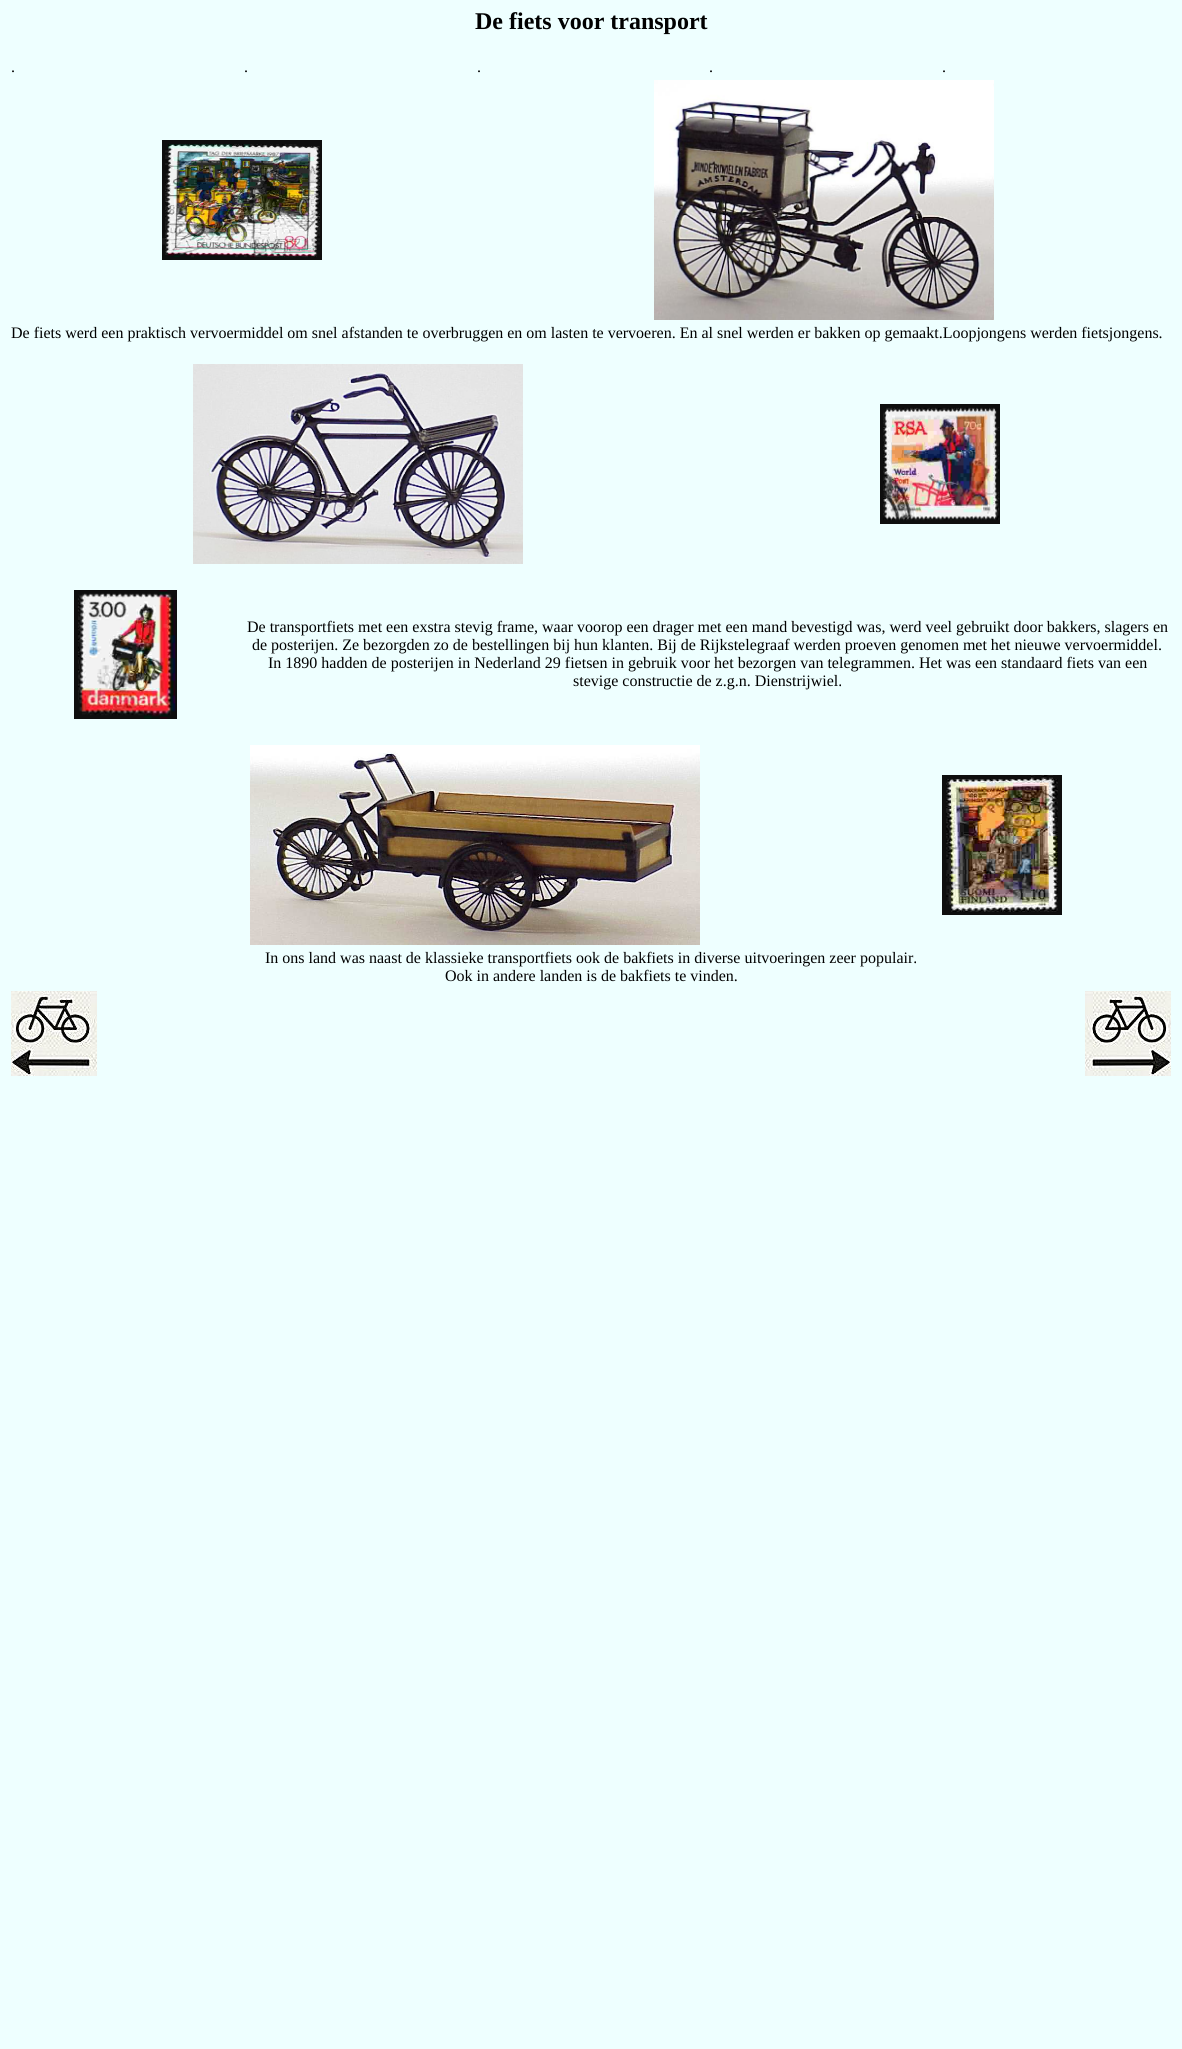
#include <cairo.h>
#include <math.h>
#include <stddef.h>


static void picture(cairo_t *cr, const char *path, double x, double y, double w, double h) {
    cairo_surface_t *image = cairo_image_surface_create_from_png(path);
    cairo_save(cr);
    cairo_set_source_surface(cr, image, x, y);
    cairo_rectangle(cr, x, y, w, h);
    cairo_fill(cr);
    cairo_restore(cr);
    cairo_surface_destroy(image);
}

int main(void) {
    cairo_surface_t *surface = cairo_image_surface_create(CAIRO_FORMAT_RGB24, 1182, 2049);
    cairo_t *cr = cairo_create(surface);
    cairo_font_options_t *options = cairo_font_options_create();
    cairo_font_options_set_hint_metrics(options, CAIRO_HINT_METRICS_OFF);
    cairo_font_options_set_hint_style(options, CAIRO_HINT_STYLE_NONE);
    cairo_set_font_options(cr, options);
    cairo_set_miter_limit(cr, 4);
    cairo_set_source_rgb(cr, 0.933, 1, 1);
    cairo_paint(cr);
    cairo_select_font_face(cr, "Liberation Serif", CAIRO_FONT_SLANT_NORMAL, CAIRO_FONT_WEIGHT_BOLD);
    cairo_set_font_size(cr, 24);
    cairo_set_source_rgb(cr, 0, 0, 0);
    cairo_move_to(cr, 475, 29);
    cairo_show_text(cr, "De fiets voor transport");
    cairo_select_font_face(cr, "Liberation Serif", CAIRO_FONT_SLANT_NORMAL, CAIRO_FONT_WEIGHT_NORMAL);
    cairo_set_font_size(cr, 16);
    cairo_move_to(cr, 11, 72);
    cairo_show_text(cr, ".");
    cairo_move_to(cr, 244, 72);
    cairo_show_text(cr, ".");
    cairo_move_to(cr, 477, 72);
    cairo_show_text(cr, ".");
    cairo_move_to(cr, 709, 72);
    cairo_show_text(cr, ".");
    cairo_move_to(cr, 942, 72);
    cairo_show_text(cr, ".");
    picture(cr, "img1.png", 162, 140, 160, 120);
    picture(cr, "img2.png", 654, 80, 340, 240);
    cairo_move_to(cr, 11, 338);
    cairo_show_text(cr, "De fiets werd een praktisch vervoermiddel om snel afstanden te overbruggen en om lasten te vervoeren. En al snel werden er bakken op gemaakt.Loopjongens werden fietsjongens.");
    picture(cr, "img3.png", 193, 364, 330, 200);
    picture(cr, "img4.png", 880, 404, 120, 120);
    picture(cr, "img5.png", 74, 590, 103, 129);
    cairo_move_to(cr, 247, 632);
    cairo_show_text(cr, "De transportfiets met een exstra stevig frame, waar voorop een drager met een mand bevestigd was, werd veel gebruikt door bakkers, slagers en");
    cairo_move_to(cr, 252, 650);
    cairo_show_text(cr, "de posterijen. Ze bezorgden zo de bestellingen bij hun klanten. Bij de Rijkstelegraaf werden proeven genomen met het nieuwe vervoermiddel.");
    cairo_move_to(cr, 268, 668);
    cairo_show_text(cr, "In 1890 hadden de posterijen in Nederland 29 fietsen in gebruik voor het bezorgen van telegrammen. Het was een standaard fiets van een");
    cairo_move_to(cr, 573, 686);
    cairo_show_text(cr, "stevige constructie de z.g.n. Dienstrijwiel.");
    picture(cr, "img6.png", 250, 745, 450, 200);
    picture(cr, "img7.png", 942, 775, 120, 140);
    cairo_move_to(cr, 265, 963);
    cairo_show_text(cr, "In ons land was naast de klassieke transportfiets ook de bakfiets in diverse uitvoeringen zeer populair.");
    cairo_move_to(cr, 445, 981);
    cairo_show_text(cr, "Ook in andere landen is de bakfiets te vinden.");
    picture(cr, "img8.png", 11, 991, 86, 85);
    picture(cr, "img9.png", 1085, 991, 86, 85);
    cairo_surface_write_to_png(surface, "page.png");
    cairo_font_options_destroy(options);
    cairo_destroy(cr);
    cairo_surface_destroy(surface);
    return 0;
}
